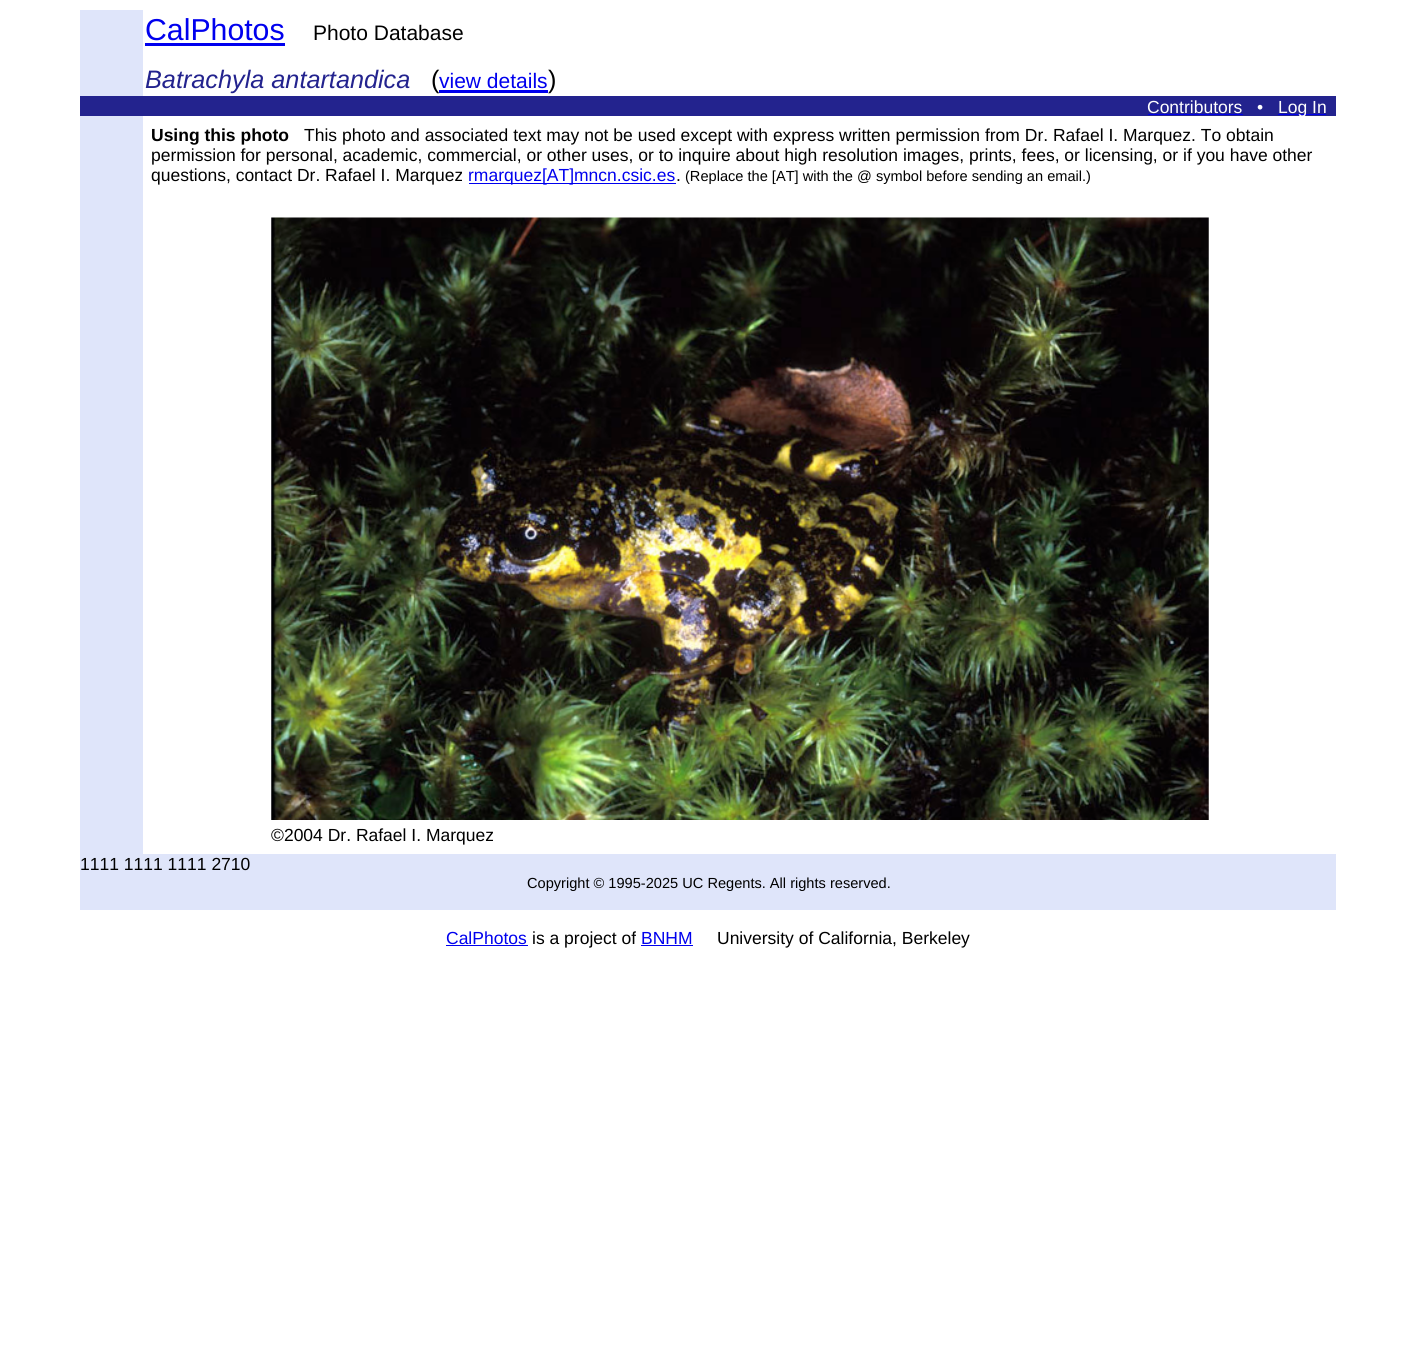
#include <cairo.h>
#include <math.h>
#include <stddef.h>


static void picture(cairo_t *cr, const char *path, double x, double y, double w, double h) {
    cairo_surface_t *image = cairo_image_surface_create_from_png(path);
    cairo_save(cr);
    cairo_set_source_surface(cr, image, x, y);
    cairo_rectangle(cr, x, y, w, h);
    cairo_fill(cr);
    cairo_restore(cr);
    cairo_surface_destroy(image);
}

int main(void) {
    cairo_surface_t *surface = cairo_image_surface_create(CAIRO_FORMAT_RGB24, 1416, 1359);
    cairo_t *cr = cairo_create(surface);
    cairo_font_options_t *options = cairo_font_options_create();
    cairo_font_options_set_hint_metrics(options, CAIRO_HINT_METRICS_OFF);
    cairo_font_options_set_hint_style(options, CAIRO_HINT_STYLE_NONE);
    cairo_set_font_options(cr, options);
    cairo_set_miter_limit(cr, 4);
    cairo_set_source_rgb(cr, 1, 1, 1);
    cairo_paint(cr);
    cairo_set_source_rgb(cr, 0.875, 0.898, 0.98);
    cairo_rectangle(cr, 80, 10, 63, 86);
    cairo_fill(cr);
    cairo_select_font_face(cr, "Liberation Sans", CAIRO_FONT_SLANT_NORMAL, CAIRO_FONT_WEIGHT_NORMAL);
    cairo_set_font_size(cr, 30.25);
    cairo_set_source_rgb(cr, 0, 0, 0.933);
    cairo_move_to(cr, 145, 40);
    cairo_show_text(cr, "CalPhotos");
    cairo_rectangle(cr, 145, 43, 140, 3);
    cairo_fill(cr);
    cairo_set_font_size(cr, 21);
    cairo_set_source_rgb(cr, 0, 0, 0);
    cairo_move_to(cr, 313, 40);
    cairo_show_text(cr, "Photo Database");
    cairo_select_font_face(cr, "Liberation Sans", CAIRO_FONT_SLANT_ITALIC, CAIRO_FONT_WEIGHT_NORMAL);
    cairo_set_font_size(cr, 25.25);
    cairo_set_source_rgb(cr, 0.137, 0.137, 0.557);
    cairo_move_to(cr, 145, 88);
    cairo_show_text(cr, "Batrachyla antartandica");
    cairo_select_font_face(cr, "Liberation Sans", CAIRO_FONT_SLANT_NORMAL, CAIRO_FONT_WEIGHT_NORMAL);
    cairo_set_source_rgb(cr, 0, 0, 0);
    cairo_move_to(cr, 431, 88);
    cairo_show_text(cr, "(");
    cairo_set_source_rgb(cr, 0, 0, 0.933);
    cairo_rectangle(cr, 439, 90, 109, 3);
    cairo_fill(cr);
    cairo_set_font_size(cr, 21);
    cairo_move_to(cr, 439, 88);
    cairo_show_text(cr, "view details");
    cairo_set_font_size(cr, 25.25);
    cairo_set_source_rgb(cr, 0, 0, 0);
    cairo_move_to(cr, 548, 88);
    cairo_show_text(cr, ")");
    cairo_set_source_rgb(cr, 0.137, 0.137, 0.557);
    cairo_rectangle(cr, 80, 96, 1256, 20);
    cairo_fill(cr);
    cairo_set_font_size(cr, 17.5);
    cairo_set_source_rgb(cr, 1, 1, 1);
    cairo_move_to(cr, 1147, 113);
    cairo_show_text(cr, "Contributors");
    cairo_set_source_rgb(cr, 0, 0, 0.933);
    cairo_rectangle(cr, 1148, 114, 95, 1);
    cairo_fill(cr);
    cairo_set_source_rgb(cr, 1, 1, 1);
    cairo_move_to(cr, 1257, 113);
    cairo_show_text(cr, "•");
    cairo_set_source_rgb(cr, 0, 0, 0.933);
    cairo_rectangle(cr, 1278, 114, 48, 1);
    cairo_fill(cr);
    cairo_set_source_rgb(cr, 1, 1, 1);
    cairo_move_to(cr, 1278, 113);
    cairo_show_text(cr, "Log In");
    cairo_set_source_rgb(cr, 0.875, 0.898, 0.98);
    cairo_rectangle(cr, 80, 116, 63, 738);
    cairo_fill(cr);
    cairo_select_font_face(cr, "Liberation Sans", CAIRO_FONT_SLANT_NORMAL, CAIRO_FONT_WEIGHT_BOLD);
    cairo_set_source_rgb(cr, 0, 0, 0);
    cairo_move_to(cr, 151, 141);
    cairo_show_text(cr, "Using this photo");
    cairo_select_font_face(cr, "Liberation Sans", CAIRO_FONT_SLANT_NORMAL, CAIRO_FONT_WEIGHT_NORMAL);
    cairo_move_to(cr, 304, 141);
    cairo_show_text(cr, "This photo and associated text may not be used except with express written permission from Dr. Rafael I. Marquez. To obtain");
    cairo_move_to(cr, 151, 161);
    cairo_show_text(cr, "permission for personal, academic, commercial, or other uses, or to inquire about high resolution images, prints, fees, or licensing, or if you have other");
    cairo_move_to(cr, 151, 181);
    cairo_show_text(cr, "questions, contact Dr. Rafael I. Marquez");
    cairo_set_source_rgb(cr, 0, 0, 0.933);
    cairo_rectangle(cr, 469, 183, 207, 1);
    cairo_fill(cr);
    cairo_move_to(cr, 468, 181);
    cairo_show_text(cr, "rmarquez[AT]mncn.csic.es");
    cairo_set_source_rgb(cr, 0, 0, 0);
    cairo_move_to(cr, 676, 181);
    cairo_show_text(cr, ".");
    cairo_set_font_size(cr, 14.6);
    cairo_move_to(cr, 685, 181);
    cairo_show_text(cr, "(Replace the [AT] with the @ symbol before sending an email.)");
    picture(cr, "img1.png", 271, 217, 938, 603);
    cairo_set_font_size(cr, 17.5);
    cairo_move_to(cr, 271, 841);
    cairo_show_text(cr, "©2004 Dr. Rafael I. Marquez");
    cairo_set_source_rgb(cr, 0.875, 0.898, 0.98);
    cairo_rectangle(cr, 80, 854, 1256, 56);
    cairo_fill(cr);
    cairo_set_source_rgb(cr, 0, 0, 0);
    cairo_move_to(cr, 80, 870);
    cairo_show_text(cr, "1111 1111 1111 2710");
    cairo_set_font_size(cr, 14.6);
    cairo_move_to(cr, 527, 888);
    cairo_show_text(cr, "Copyright © 1995-2025 UC Regents. All rights reserved.");
    cairo_set_font_size(cr, 17.5);
    cairo_set_source_rgb(cr, 0, 0, 0.933);
    cairo_move_to(cr, 446, 944);
    cairo_show_text(cr, "CalPhotos");
    cairo_rectangle(cr, 446, 945, 82, 1);
    cairo_fill(cr);
    cairo_set_source_rgb(cr, 0, 0, 0);
    cairo_move_to(cr, 532, 944);
    cairo_show_text(cr, "is a project of");
    cairo_set_source_rgb(cr, 0, 0, 0.933);
    cairo_move_to(cr, 641, 944);
    cairo_show_text(cr, "BNHM");
    cairo_rectangle(cr, 641, 945, 52, 1);
    cairo_fill(cr);
    cairo_set_source_rgb(cr, 0, 0, 0);
    cairo_move_to(cr, 717, 944);
    cairo_show_text(cr, "University of California, Berkeley");
    cairo_surface_write_to_png(surface, "page.png");
    cairo_font_options_destroy(options);
    cairo_destroy(cr);
    cairo_surface_destroy(surface);
    return 0;
}
